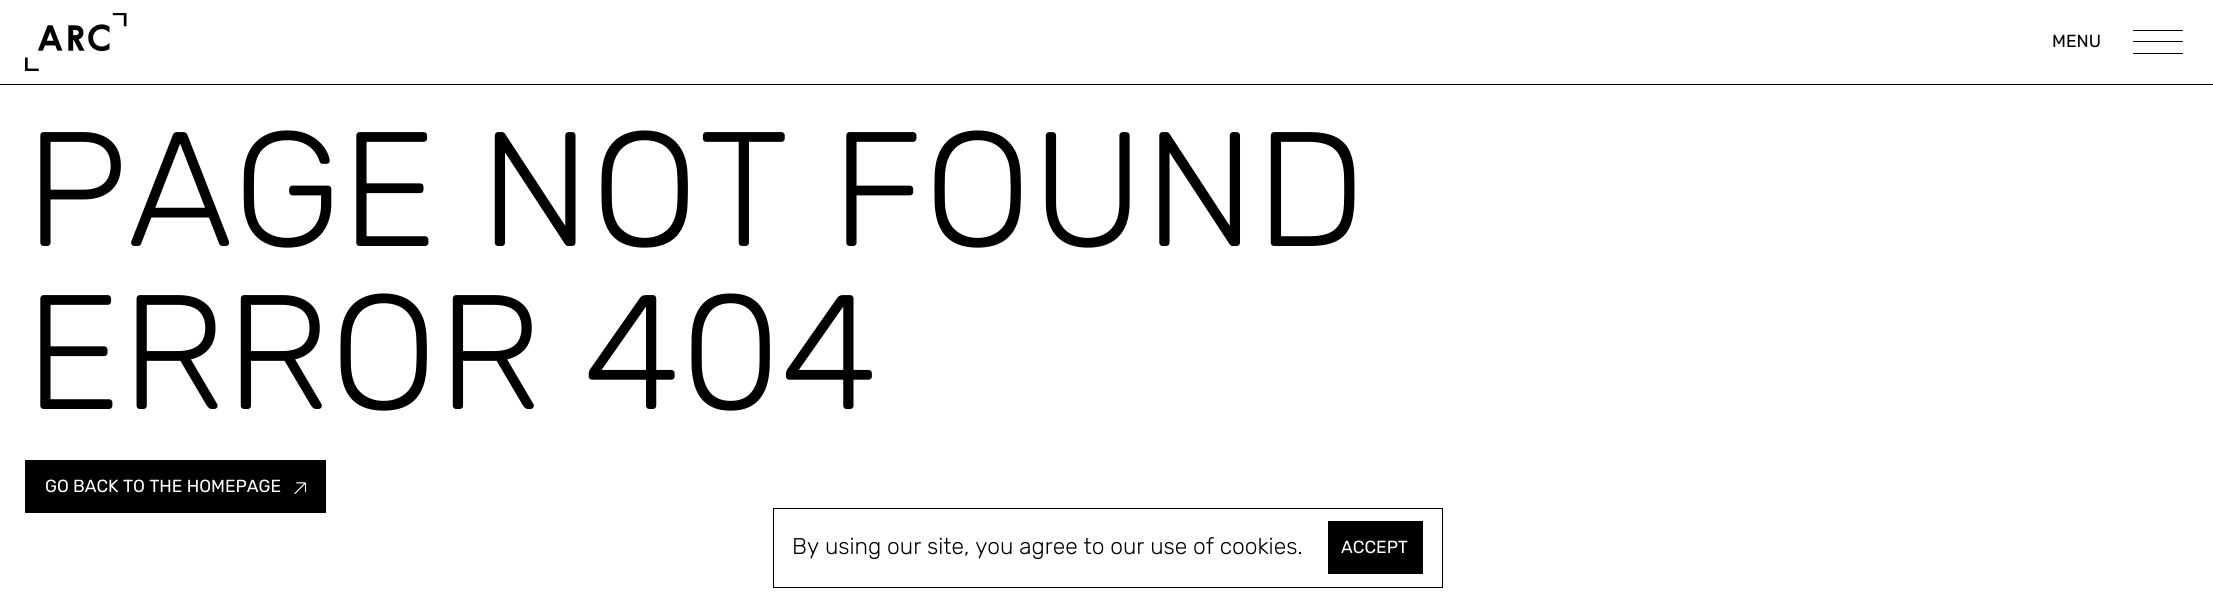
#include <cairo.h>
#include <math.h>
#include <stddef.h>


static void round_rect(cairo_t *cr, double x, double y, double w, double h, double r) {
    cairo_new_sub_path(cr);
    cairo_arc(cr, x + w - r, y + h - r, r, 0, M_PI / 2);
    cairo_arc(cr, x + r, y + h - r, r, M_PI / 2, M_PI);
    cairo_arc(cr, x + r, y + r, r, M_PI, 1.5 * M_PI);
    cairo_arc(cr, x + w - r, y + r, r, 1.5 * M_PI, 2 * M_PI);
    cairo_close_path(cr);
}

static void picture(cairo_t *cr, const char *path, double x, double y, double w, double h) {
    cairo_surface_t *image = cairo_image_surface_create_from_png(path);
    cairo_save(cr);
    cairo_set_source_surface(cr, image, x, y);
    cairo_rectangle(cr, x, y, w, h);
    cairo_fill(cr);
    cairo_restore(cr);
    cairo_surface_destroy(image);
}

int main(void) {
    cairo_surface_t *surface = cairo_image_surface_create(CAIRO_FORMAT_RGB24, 2213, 599);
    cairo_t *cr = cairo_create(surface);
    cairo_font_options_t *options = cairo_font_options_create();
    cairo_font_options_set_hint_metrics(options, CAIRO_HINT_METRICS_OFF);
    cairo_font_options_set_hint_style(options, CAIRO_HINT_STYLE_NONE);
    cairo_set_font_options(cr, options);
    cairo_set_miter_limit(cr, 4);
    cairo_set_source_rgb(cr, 1, 1, 1);
    cairo_paint(cr);
    cairo_set_source_rgb(cr, 0, 0, 0);
    cairo_rectangle(cr, 0, 84, 2213, 1);
    cairo_fill(cr);
    picture(cr, "img1.png", 25, 13, 102, 58);
    cairo_select_font_face(cr, "Rubik", CAIRO_FONT_SLANT_NORMAL, CAIRO_FONT_WEIGHT_NORMAL);
    cairo_set_font_size(cr, 17.5);
    cairo_move_to(cr, 2052, 47);
    cairo_show_text(cr, "MENU");
    round_rect(cr, 2133, 30, 50, 1, 0.5);
    cairo_fill(cr);
    round_rect(cr, 2133, 41, 50, 1, 0.5);
    cairo_fill(cr);
    round_rect(cr, 2133, 53, 50, 1, 0.5);
    cairo_fill(cr);
    cairo_select_font_face(cr, "Rubik Light", CAIRO_FONT_SLANT_NORMAL, CAIRO_FONT_WEIGHT_NORMAL);
    cairo_set_font_size(cr, 162.75);
    cairo_move_to(cr, 25, 246);
    cairo_show_text(cr, "PAGE NOT FOUND");
    cairo_move_to(cr, 25, 409);
    cairo_show_text(cr, "ERROR 404");
    cairo_rectangle(cr, 25, 460, 301, 53);
    cairo_fill(cr);
    cairo_select_font_face(cr, "Rubik", CAIRO_FONT_SLANT_NORMAL, CAIRO_FONT_WEIGHT_NORMAL);
    cairo_set_font_size(cr, 17.5);
    cairo_set_source_rgb(cr, 1, 1, 1);
    cairo_move_to(cr, 45, 492);
    cairo_show_text(cr, "GO BACK TO THE HOMEPAGE");
    picture(cr, "img2.png", 294, 482, 12, 12);
    cairo_rectangle(cr, 773.5, 508.5, 669, 79);
    cairo_set_source_rgb(cr, 0, 0, 0);
    cairo_set_line_width(cr, 1);
    cairo_stroke(cr);
    cairo_select_font_face(cr, "Rubik Light", CAIRO_FONT_SLANT_NORMAL, CAIRO_FONT_WEIGHT_NORMAL);
    cairo_set_font_size(cr, 22.8);
    cairo_move_to(cr, 792, 554);
    cairo_show_text(cr, "By using our site, you agree to our use of cookies.");
    cairo_rectangle(cr, 1328, 521, 95, 53);
    cairo_fill(cr);
    cairo_select_font_face(cr, "Rubik", CAIRO_FONT_SLANT_NORMAL, CAIRO_FONT_WEIGHT_NORMAL);
    cairo_set_font_size(cr, 17.5);
    cairo_set_source_rgb(cr, 1, 1, 1);
    cairo_move_to(cr, 1341, 553);
    cairo_show_text(cr, "ACCEPT");
    cairo_surface_write_to_png(surface, "page.png");
    cairo_font_options_destroy(options);
    cairo_destroy(cr);
    cairo_surface_destroy(surface);
    return 0;
}
